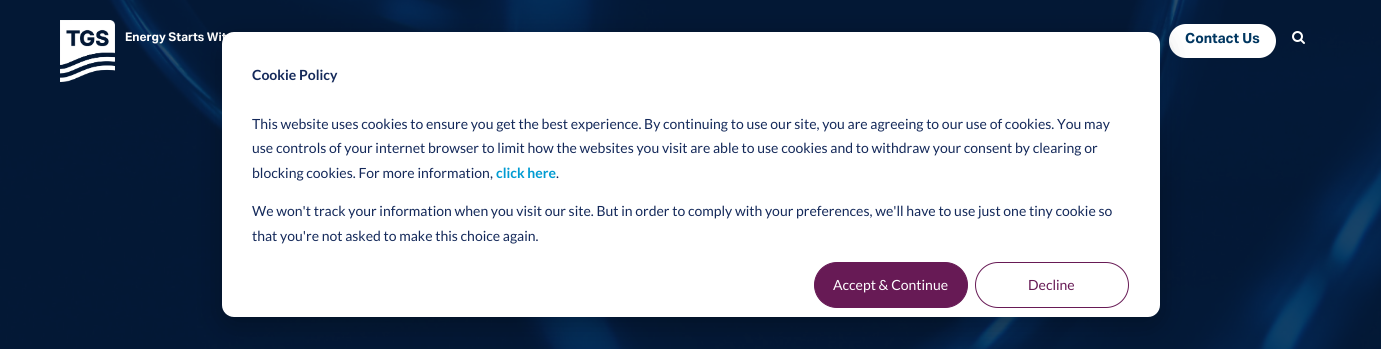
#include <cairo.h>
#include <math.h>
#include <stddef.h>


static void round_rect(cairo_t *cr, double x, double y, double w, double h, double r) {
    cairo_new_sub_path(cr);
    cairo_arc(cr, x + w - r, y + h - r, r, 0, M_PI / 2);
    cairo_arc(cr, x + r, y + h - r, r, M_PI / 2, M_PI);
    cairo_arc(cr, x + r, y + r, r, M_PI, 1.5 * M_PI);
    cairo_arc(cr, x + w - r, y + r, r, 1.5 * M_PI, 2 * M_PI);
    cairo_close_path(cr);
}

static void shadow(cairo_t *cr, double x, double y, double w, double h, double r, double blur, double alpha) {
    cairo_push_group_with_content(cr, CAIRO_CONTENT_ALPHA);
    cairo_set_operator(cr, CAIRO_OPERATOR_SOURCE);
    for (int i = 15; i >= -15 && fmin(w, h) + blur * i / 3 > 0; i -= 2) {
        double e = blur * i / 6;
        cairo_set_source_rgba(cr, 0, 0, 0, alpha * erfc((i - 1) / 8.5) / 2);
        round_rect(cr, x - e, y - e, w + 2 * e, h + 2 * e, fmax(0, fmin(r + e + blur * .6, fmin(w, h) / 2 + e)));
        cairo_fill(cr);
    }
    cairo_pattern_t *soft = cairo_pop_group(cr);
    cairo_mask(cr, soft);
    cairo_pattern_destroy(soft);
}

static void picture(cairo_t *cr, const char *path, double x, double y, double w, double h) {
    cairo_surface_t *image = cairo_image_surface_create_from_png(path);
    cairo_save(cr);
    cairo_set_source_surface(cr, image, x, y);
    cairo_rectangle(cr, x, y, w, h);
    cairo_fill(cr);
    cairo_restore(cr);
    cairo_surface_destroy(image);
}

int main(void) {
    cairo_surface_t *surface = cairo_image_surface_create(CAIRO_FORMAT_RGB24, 1381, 349);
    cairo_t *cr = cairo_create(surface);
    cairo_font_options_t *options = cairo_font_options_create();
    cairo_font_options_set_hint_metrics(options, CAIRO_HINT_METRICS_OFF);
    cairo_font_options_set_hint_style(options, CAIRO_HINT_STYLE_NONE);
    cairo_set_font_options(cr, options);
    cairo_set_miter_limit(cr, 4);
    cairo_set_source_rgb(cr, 1, 1, 1);
    cairo_paint(cr);
    picture(cr, "img1.png", 0, 0, 1381, 349);
    picture(cr, "img2.png", 60, 20, 55, 62);
    cairo_select_font_face(cr, "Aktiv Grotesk", CAIRO_FONT_SLANT_NORMAL, CAIRO_FONT_WEIGHT_BOLD);
    cairo_set_font_size(cr, 12);
    cairo_set_source_rgb(cr, 1, 1, 1);
    cairo_move_to(cr, 125, 41);
    cairo_show_text(cr, "Energy Starts Wit");
    round_rect(cr, 1169, 24, 107, 34, 17);
    cairo_fill(cr);
    cairo_set_font_size(cr, 14);
    cairo_set_source_rgb(cr, 0, 0.212, 0.376);
    cairo_move_to(cr, 1185, 43);
    cairo_show_text(cr, "Contact Us");
    picture(cr, "img3.png", 1292, 31, 13, 13);
    cairo_set_source_rgb(cr, 0, 0, 0);
    shadow(cr, 222, 40, 938, 285, 12, 14, 0.28);
    cairo_set_source_rgb(cr, 1, 1, 1);
    round_rect(cr, 222, 32, 938, 285, 12);
    cairo_fill(cr);
    cairo_select_font_face(cr, "Lato", CAIRO_FONT_SLANT_NORMAL, CAIRO_FONT_WEIGHT_BOLD);
    cairo_set_source_rgb(cr, 0.082, 0.161, 0.353);
    cairo_move_to(cr, 252, 80);
    cairo_show_text(cr, "Cookie Policy");
    cairo_select_font_face(cr, "Lato", CAIRO_FONT_SLANT_NORMAL, CAIRO_FONT_WEIGHT_NORMAL);
    cairo_move_to(cr, 252, 129);
    cairo_show_text(cr, "This website uses cookies to ensure you get the best experience. By continuing to use our site, you are agreeing to our use of cookies. You may");
    cairo_move_to(cr, 252, 153);
    cairo_show_text(cr, "use controls of your internet browser to limit how the websites you visit are able to use cookies and to withdraw your consent by clearing or");
    cairo_move_to(cr, 252, 178);
    cairo_show_text(cr, "blocking cookies. For more information,");
    cairo_select_font_face(cr, "Lato", CAIRO_FONT_SLANT_NORMAL, CAIRO_FONT_WEIGHT_BOLD);
    cairo_set_source_rgb(cr, 0, 0.608, 0.824);
    cairo_move_to(cr, 496, 178);
    cairo_show_text(cr, "click here");
    cairo_select_font_face(cr, "Lato", CAIRO_FONT_SLANT_NORMAL, CAIRO_FONT_WEIGHT_NORMAL);
    cairo_set_source_rgb(cr, 0.082, 0.161, 0.353);
    cairo_move_to(cr, 556, 178);
    cairo_show_text(cr, ".");
    cairo_move_to(cr, 252, 216);
    cairo_show_text(cr, "We won't track your information when you visit our site. But in order to comply with your preferences, we'll have to use just one tiny cookie so");
    cairo_move_to(cr, 252, 241);
    cairo_show_text(cr, "that you're not asked to make this choice again.");
    cairo_set_source_rgb(cr, 0.404, 0.102, 0.333);
    round_rect(cr, 814.5, 262.5, 153, 45, 22.5);
    cairo_fill_preserve(cr);
    cairo_set_line_width(cr, 1);
    cairo_stroke(cr);
    cairo_set_source_rgb(cr, 1, 1, 1);
    cairo_move_to(cr, 833, 290);
    cairo_show_text(cr, "Accept & Continue");
    round_rect(cr, 975.5, 262.5, 153, 45, 22.5);
    cairo_set_source_rgb(cr, 0.404, 0.102, 0.333);
    cairo_stroke(cr);
    cairo_move_to(cr, 1028, 290);
    cairo_show_text(cr, "Decline");
    cairo_surface_write_to_png(surface, "page.png");
    cairo_font_options_destroy(options);
    cairo_destroy(cr);
    cairo_surface_destroy(surface);
    return 0;
}
